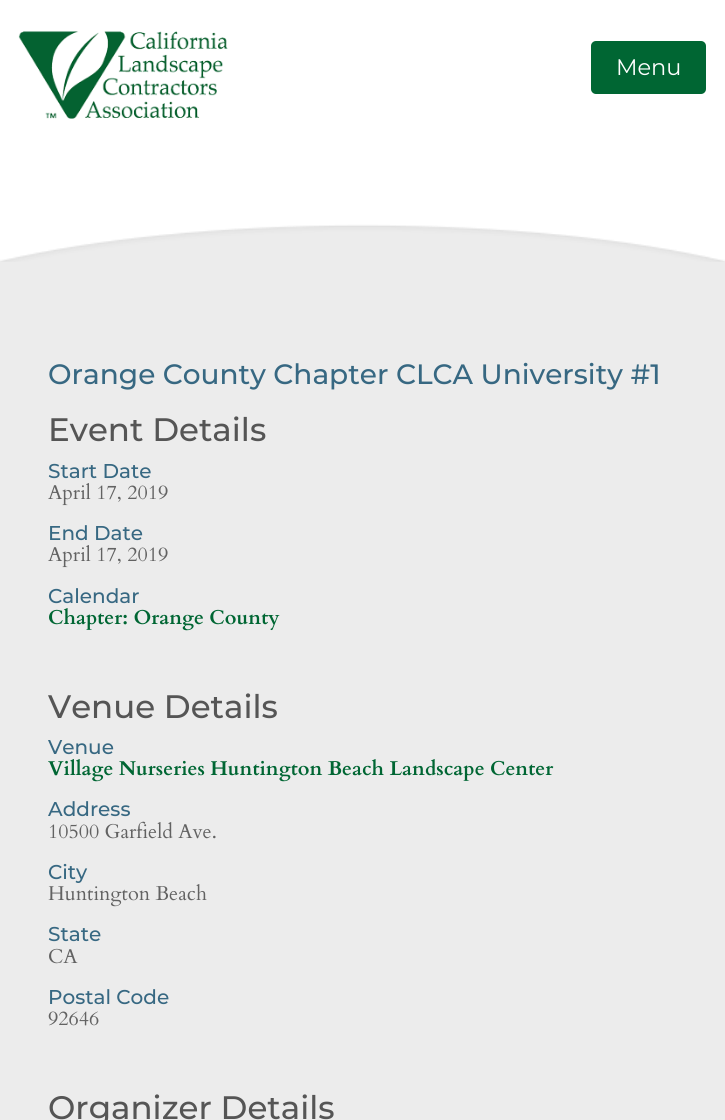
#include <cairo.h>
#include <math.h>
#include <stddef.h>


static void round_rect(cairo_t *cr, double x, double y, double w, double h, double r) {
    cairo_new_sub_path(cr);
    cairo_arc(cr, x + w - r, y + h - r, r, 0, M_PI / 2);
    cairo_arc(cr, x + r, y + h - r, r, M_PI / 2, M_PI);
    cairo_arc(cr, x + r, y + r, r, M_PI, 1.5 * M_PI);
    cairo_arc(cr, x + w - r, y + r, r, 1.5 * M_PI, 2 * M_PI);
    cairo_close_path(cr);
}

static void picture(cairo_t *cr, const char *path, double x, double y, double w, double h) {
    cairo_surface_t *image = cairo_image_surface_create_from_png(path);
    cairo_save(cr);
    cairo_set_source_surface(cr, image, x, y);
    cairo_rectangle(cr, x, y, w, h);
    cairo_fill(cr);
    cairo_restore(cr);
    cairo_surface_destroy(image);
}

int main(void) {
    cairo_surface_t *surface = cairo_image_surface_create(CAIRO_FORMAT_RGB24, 725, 1120);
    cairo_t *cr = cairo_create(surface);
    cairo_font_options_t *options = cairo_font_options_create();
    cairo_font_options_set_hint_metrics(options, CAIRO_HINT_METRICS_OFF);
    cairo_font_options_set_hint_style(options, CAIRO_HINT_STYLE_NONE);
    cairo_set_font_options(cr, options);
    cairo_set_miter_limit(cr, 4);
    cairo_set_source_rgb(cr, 0.925, 0.922, 0.922);
    cairo_paint(cr);
    cairo_set_source_rgb(cr, 1, 1, 1);
    cairo_rectangle(cr, 0, 0, 725, 101);
    cairo_fill(cr);
    picture(cr, "img2.png", 0, 101, 725, 161);
    picture(cr, "img1.png", 18, 31, 210, 88);
    cairo_set_source_rgb(cr, 0, 0.4, 0.2);
    round_rect(cr, 591, 41, 115, 53, 5);
    cairo_fill(cr);
    cairo_select_font_face(cr, "Montserrat", CAIRO_FONT_SLANT_NORMAL, CAIRO_FONT_WEIGHT_NORMAL);
    cairo_set_font_size(cr, 22.5);
    cairo_set_source_rgb(cr, 1, 1, 1);
    cairo_move_to(cr, 616, 75);
    cairo_show_text(cr, "Menu");
    cairo_select_font_face(cr, "Montserrat Medium", CAIRO_FONT_SLANT_NORMAL, CAIRO_FONT_WEIGHT_NORMAL);
    cairo_set_font_size(cr, 28);
    cairo_set_source_rgb(cr, 0.216, 0.408, 0.51);
    cairo_move_to(cr, 48, 384);
    cairo_show_text(cr, "Orange County Chapter CLCA University #1");
    cairo_set_font_size(cr, 32.5);
    cairo_set_source_rgb(cr, 0.333, 0.333, 0.333);
    cairo_move_to(cr, 48, 441);
    cairo_show_text(cr, "Event Details");
    cairo_set_font_size(cr, 20);
    cairo_set_source_rgb(cr, 0.216, 0.408, 0.51);
    cairo_move_to(cr, 48, 478);
    cairo_show_text(cr, "Start Date");
    cairo_select_font_face(cr, "Cardo", CAIRO_FONT_SLANT_NORMAL, CAIRO_FONT_WEIGHT_NORMAL);
    cairo_set_source_rgb(cr, 0.384, 0.384, 0.384);
    cairo_move_to(cr, 48, 499);
    cairo_show_text(cr, "April 17, 2019");
    cairo_select_font_face(cr, "Montserrat Medium", CAIRO_FONT_SLANT_NORMAL, CAIRO_FONT_WEIGHT_NORMAL);
    cairo_set_source_rgb(cr, 0.216, 0.408, 0.51);
    cairo_move_to(cr, 48, 540);
    cairo_show_text(cr, "End Date");
    cairo_select_font_face(cr, "Cardo", CAIRO_FONT_SLANT_NORMAL, CAIRO_FONT_WEIGHT_NORMAL);
    cairo_set_source_rgb(cr, 0.384, 0.384, 0.384);
    cairo_move_to(cr, 48, 561);
    cairo_show_text(cr, "April 17, 2019");
    cairo_select_font_face(cr, "Montserrat Medium", CAIRO_FONT_SLANT_NORMAL, CAIRO_FONT_WEIGHT_NORMAL);
    cairo_set_source_rgb(cr, 0.216, 0.408, 0.51);
    cairo_move_to(cr, 48, 603);
    cairo_show_text(cr, "Calendar");
    cairo_select_font_face(cr, "Cardo", CAIRO_FONT_SLANT_NORMAL, CAIRO_FONT_WEIGHT_BOLD);
    cairo_set_source_rgb(cr, 0, 0.4, 0.2);
    cairo_move_to(cr, 48, 624);
    cairo_show_text(cr, "Chapter: Orange County");
    cairo_select_font_face(cr, "Montserrat Medium", CAIRO_FONT_SLANT_NORMAL, CAIRO_FONT_WEIGHT_NORMAL);
    cairo_set_font_size(cr, 32.5);
    cairo_set_source_rgb(cr, 0.333, 0.333, 0.333);
    cairo_move_to(cr, 48, 718);
    cairo_show_text(cr, "Venue Details");
    cairo_set_font_size(cr, 20);
    cairo_set_source_rgb(cr, 0.216, 0.408, 0.51);
    cairo_move_to(cr, 48, 754);
    cairo_show_text(cr, "Venue");
    cairo_select_font_face(cr, "Cardo", CAIRO_FONT_SLANT_NORMAL, CAIRO_FONT_WEIGHT_BOLD);
    cairo_set_source_rgb(cr, 0, 0.4, 0.2);
    cairo_move_to(cr, 48, 775);
    cairo_show_text(cr, "Village Nurseries Huntington Beach Landscape Center");
    cairo_select_font_face(cr, "Montserrat Medium", CAIRO_FONT_SLANT_NORMAL, CAIRO_FONT_WEIGHT_NORMAL);
    cairo_set_source_rgb(cr, 0.216, 0.408, 0.51);
    cairo_move_to(cr, 48, 816);
    cairo_show_text(cr, "Address");
    cairo_select_font_face(cr, "Cardo", CAIRO_FONT_SLANT_NORMAL, CAIRO_FONT_WEIGHT_NORMAL);
    cairo_set_source_rgb(cr, 0.384, 0.384, 0.384);
    cairo_move_to(cr, 48, 838);
    cairo_show_text(cr, "10500 Garfield Ave.");
    cairo_select_font_face(cr, "Montserrat Medium", CAIRO_FONT_SLANT_NORMAL, CAIRO_FONT_WEIGHT_NORMAL);
    cairo_set_source_rgb(cr, 0.216, 0.408, 0.51);
    cairo_move_to(cr, 48, 879);
    cairo_show_text(cr, "City");
    cairo_select_font_face(cr, "Cardo", CAIRO_FONT_SLANT_NORMAL, CAIRO_FONT_WEIGHT_NORMAL);
    cairo_set_source_rgb(cr, 0.384, 0.384, 0.384);
    cairo_move_to(cr, 48, 900);
    cairo_show_text(cr, "Huntington Beach");
    cairo_select_font_face(cr, "Montserrat Medium", CAIRO_FONT_SLANT_NORMAL, CAIRO_FONT_WEIGHT_NORMAL);
    cairo_set_source_rgb(cr, 0.216, 0.408, 0.51);
    cairo_move_to(cr, 48, 941);
    cairo_show_text(cr, "State");
    cairo_select_font_face(cr, "Cardo", CAIRO_FONT_SLANT_NORMAL, CAIRO_FONT_WEIGHT_NORMAL);
    cairo_set_source_rgb(cr, 0.384, 0.384, 0.384);
    cairo_move_to(cr, 48, 963);
    cairo_show_text(cr, "CA");
    cairo_select_font_face(cr, "Montserrat Medium", CAIRO_FONT_SLANT_NORMAL, CAIRO_FONT_WEIGHT_NORMAL);
    cairo_set_source_rgb(cr, 0.216, 0.408, 0.51);
    cairo_move_to(cr, 48, 1004);
    cairo_show_text(cr, "Postal Code");
    cairo_select_font_face(cr, "Cardo", CAIRO_FONT_SLANT_NORMAL, CAIRO_FONT_WEIGHT_NORMAL);
    cairo_set_source_rgb(cr, 0.384, 0.384, 0.384);
    cairo_move_to(cr, 48, 1025);
    cairo_show_text(cr, "92646");
    cairo_select_font_face(cr, "Montserrat Medium", CAIRO_FONT_SLANT_NORMAL, CAIRO_FONT_WEIGHT_NORMAL);
    cairo_set_font_size(cr, 32.5);
    cairo_set_source_rgb(cr, 0.333, 0.333, 0.333);
    cairo_move_to(cr, 48, 1119);
    cairo_show_text(cr, "Organizer Details");
    cairo_surface_write_to_png(surface, "page.png");
    cairo_font_options_destroy(options);
    cairo_destroy(cr);
    cairo_surface_destroy(surface);
    return 0;
}
